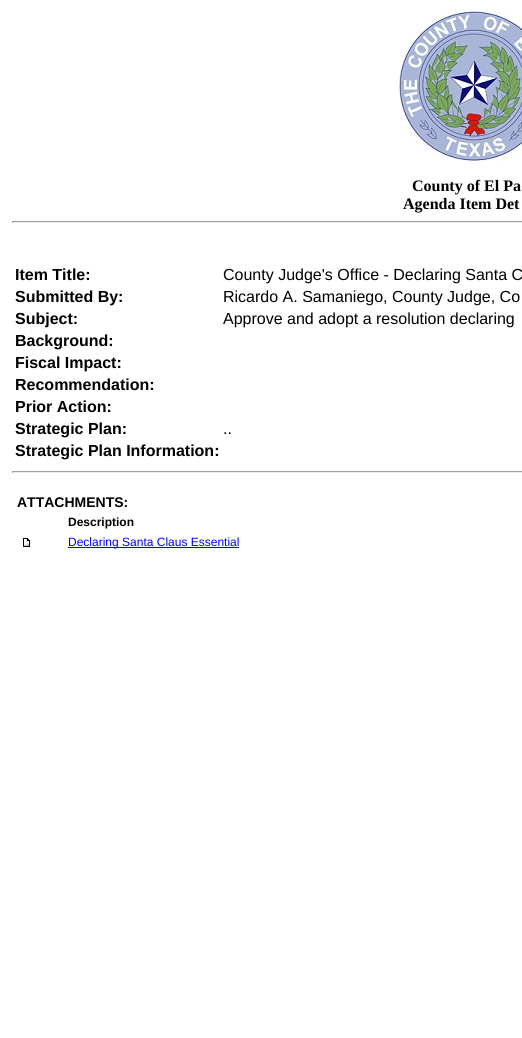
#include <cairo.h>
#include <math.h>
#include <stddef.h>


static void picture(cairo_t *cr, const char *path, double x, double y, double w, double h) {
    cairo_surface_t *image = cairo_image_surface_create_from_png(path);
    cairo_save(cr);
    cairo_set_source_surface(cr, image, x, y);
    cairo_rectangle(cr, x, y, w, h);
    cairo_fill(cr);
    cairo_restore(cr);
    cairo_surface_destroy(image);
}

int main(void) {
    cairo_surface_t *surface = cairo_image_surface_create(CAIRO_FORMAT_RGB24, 522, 1038);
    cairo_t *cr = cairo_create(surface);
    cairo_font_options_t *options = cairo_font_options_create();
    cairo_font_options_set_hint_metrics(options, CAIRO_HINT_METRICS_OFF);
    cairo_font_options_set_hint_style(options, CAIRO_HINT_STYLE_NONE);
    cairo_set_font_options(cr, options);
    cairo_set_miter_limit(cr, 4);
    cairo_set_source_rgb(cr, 1, 1, 1);
    cairo_paint(cr);
    picture(cr, "img1.png", 399, 10, 123, 152);
    cairo_select_font_face(cr, "Liberation Serif", CAIRO_FONT_SLANT_NORMAL, CAIRO_FONT_WEIGHT_BOLD);
    cairo_set_font_size(cr, 16);
    cairo_set_source_rgb(cr, 0, 0, 0);
    cairo_move_to(cr, 412, 191);
    cairo_show_text(cr, "County of El Pa");
    cairo_move_to(cr, 403, 209);
    cairo_show_text(cr, "Agenda Item Det");
    cairo_set_source_rgb(cr, 0.624, 0.624, 0.624);
    cairo_rectangle(cr, 12, 221, 510, 1);
    cairo_fill(cr);
    cairo_set_source_rgb(cr, 0.933, 0.933, 0.933);
    cairo_rectangle(cr, 12, 222, 510, 1);
    cairo_fill(cr);
    cairo_set_source_rgb(cr, 0.624, 0.624, 0.624);
    cairo_rectangle(cr, 12, 221, 1, 2);
    cairo_fill(cr);
    cairo_select_font_face(cr, "Liberation Sans", CAIRO_FONT_SLANT_NORMAL, CAIRO_FONT_WEIGHT_BOLD);
    cairo_set_source_rgb(cr, 0, 0, 0);
    cairo_move_to(cr, 15, 280);
    cairo_show_text(cr, "Item Title:");
    cairo_select_font_face(cr, "Liberation Sans", CAIRO_FONT_SLANT_NORMAL, CAIRO_FONT_WEIGHT_NORMAL);
    cairo_move_to(cr, 223, 280);
    cairo_show_text(cr, "County Judge's Office - Declaring Santa C");
    cairo_select_font_face(cr, "Liberation Sans", CAIRO_FONT_SLANT_NORMAL, CAIRO_FONT_WEIGHT_BOLD);
    cairo_move_to(cr, 15, 302);
    cairo_show_text(cr, "Submitted By:");
    cairo_select_font_face(cr, "Liberation Sans", CAIRO_FONT_SLANT_NORMAL, CAIRO_FONT_WEIGHT_NORMAL);
    cairo_move_to(cr, 223, 302);
    cairo_show_text(cr, "Ricardo A. Samaniego, County Judge, Co");
    cairo_select_font_face(cr, "Liberation Sans", CAIRO_FONT_SLANT_NORMAL, CAIRO_FONT_WEIGHT_BOLD);
    cairo_move_to(cr, 15, 324);
    cairo_show_text(cr, "Subject:");
    cairo_select_font_face(cr, "Liberation Sans", CAIRO_FONT_SLANT_NORMAL, CAIRO_FONT_WEIGHT_NORMAL);
    cairo_move_to(cr, 223, 324);
    cairo_show_text(cr, "Approve and adopt a resolution declaring");
    cairo_select_font_face(cr, "Liberation Sans", CAIRO_FONT_SLANT_NORMAL, CAIRO_FONT_WEIGHT_BOLD);
    cairo_move_to(cr, 15, 346);
    cairo_show_text(cr, "Background:");
    cairo_move_to(cr, 15, 368);
    cairo_show_text(cr, "Fiscal Impact:");
    cairo_move_to(cr, 15, 390);
    cairo_show_text(cr, "Recommendation:");
    cairo_move_to(cr, 15, 412);
    cairo_show_text(cr, "Prior Action:");
    cairo_move_to(cr, 15, 434);
    cairo_show_text(cr, "Strategic Plan:");
    cairo_select_font_face(cr, "Liberation Sans", CAIRO_FONT_SLANT_NORMAL, CAIRO_FONT_WEIGHT_NORMAL);
    cairo_move_to(cr, 223, 434);
    cairo_show_text(cr, "..");
    cairo_select_font_face(cr, "Liberation Sans", CAIRO_FONT_SLANT_NORMAL, CAIRO_FONT_WEIGHT_BOLD);
    cairo_move_to(cr, 15, 456);
    cairo_show_text(cr, "Strategic Plan Information:");
    cairo_set_source_rgb(cr, 0.624, 0.624, 0.624);
    cairo_rectangle(cr, 12, 471, 510, 1);
    cairo_fill(cr);
    cairo_set_source_rgb(cr, 0.933, 0.933, 0.933);
    cairo_rectangle(cr, 12, 472, 510, 1);
    cairo_fill(cr);
    cairo_set_source_rgb(cr, 0.624, 0.624, 0.624);
    cairo_rectangle(cr, 12, 471, 1, 2);
    cairo_fill(cr);
    cairo_set_font_size(cr, 14);
    cairo_set_source_rgb(cr, 0, 0, 0);
    cairo_move_to(cr, 17, 507);
    cairo_show_text(cr, "ATTACHMENTS:");
    cairo_set_font_size(cr, 12);
    cairo_move_to(cr, 68, 526);
    cairo_show_text(cr, "Description");
    picture(cr, "img2.png", 23, 538, 7, 9);
    cairo_set_source_rgb(cr, 0, 0, 1);
    cairo_rectangle(cr, 68, 547, 171, 1);
    cairo_fill(cr);
    cairo_select_font_face(cr, "Liberation Sans", CAIRO_FONT_SLANT_NORMAL, CAIRO_FONT_WEIGHT_NORMAL);
    cairo_move_to(cr, 68, 546);
    cairo_show_text(cr, "Declaring Santa Claus Essential");
    cairo_surface_write_to_png(surface, "page.png");
    cairo_font_options_destroy(options);
    cairo_destroy(cr);
    cairo_surface_destroy(surface);
    return 0;
}
